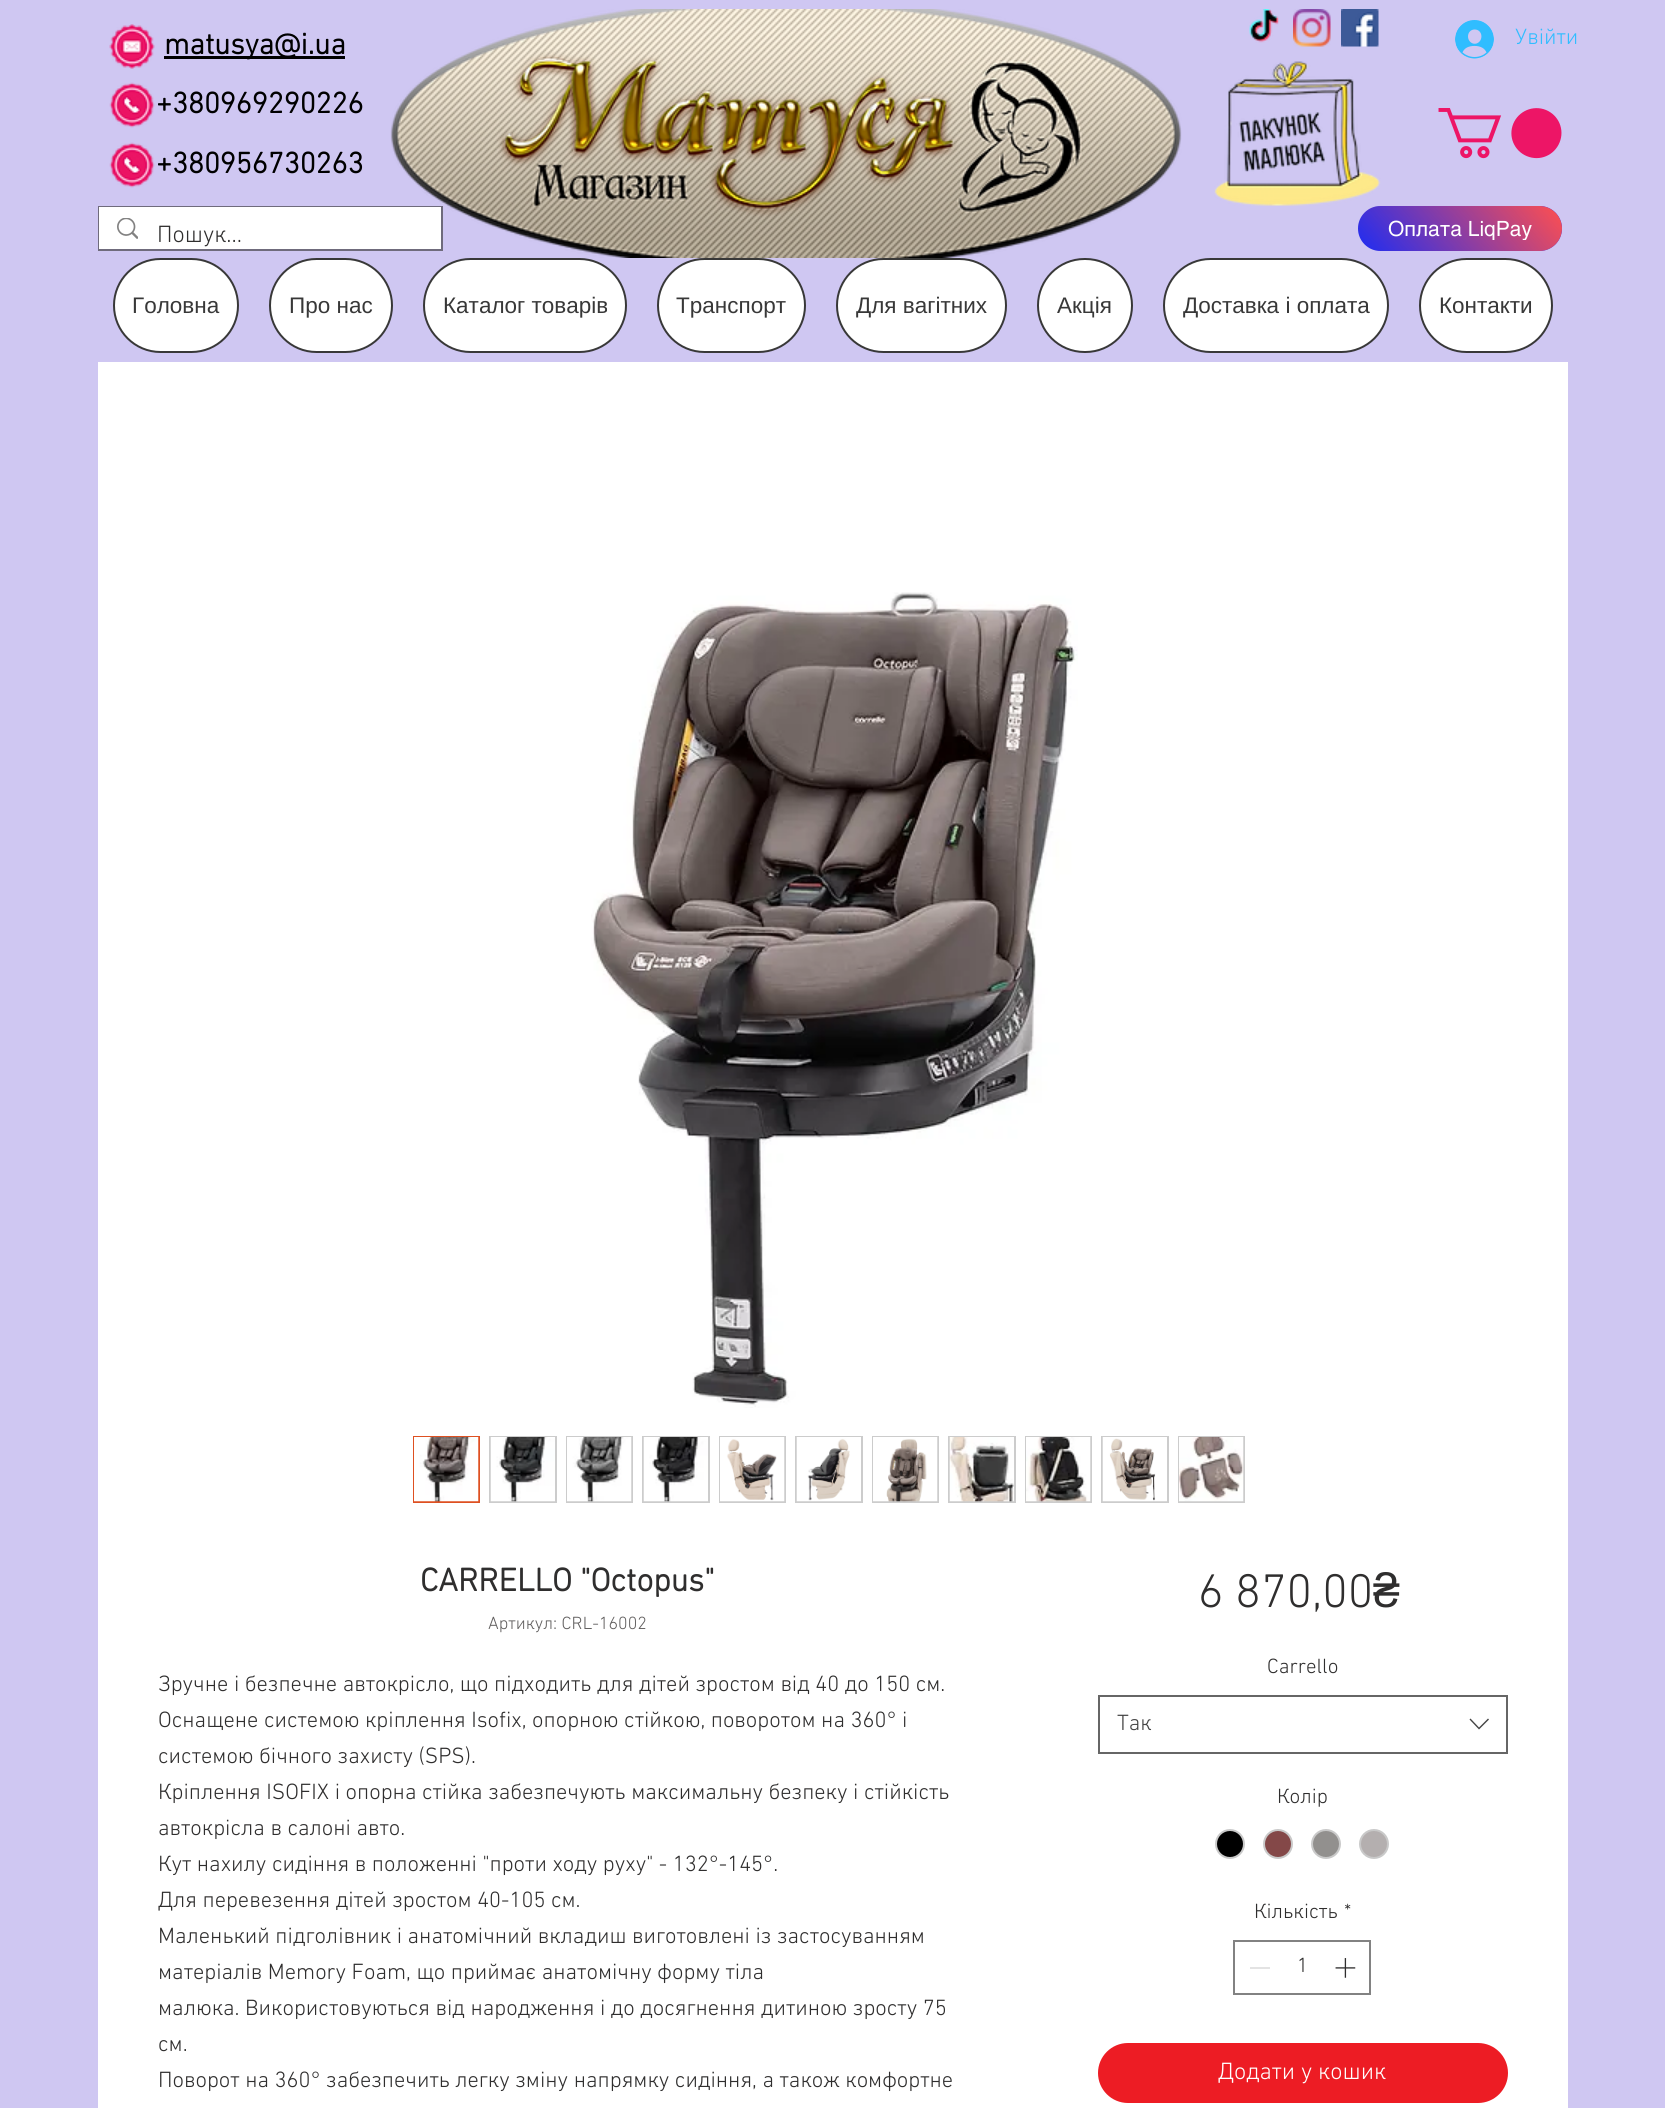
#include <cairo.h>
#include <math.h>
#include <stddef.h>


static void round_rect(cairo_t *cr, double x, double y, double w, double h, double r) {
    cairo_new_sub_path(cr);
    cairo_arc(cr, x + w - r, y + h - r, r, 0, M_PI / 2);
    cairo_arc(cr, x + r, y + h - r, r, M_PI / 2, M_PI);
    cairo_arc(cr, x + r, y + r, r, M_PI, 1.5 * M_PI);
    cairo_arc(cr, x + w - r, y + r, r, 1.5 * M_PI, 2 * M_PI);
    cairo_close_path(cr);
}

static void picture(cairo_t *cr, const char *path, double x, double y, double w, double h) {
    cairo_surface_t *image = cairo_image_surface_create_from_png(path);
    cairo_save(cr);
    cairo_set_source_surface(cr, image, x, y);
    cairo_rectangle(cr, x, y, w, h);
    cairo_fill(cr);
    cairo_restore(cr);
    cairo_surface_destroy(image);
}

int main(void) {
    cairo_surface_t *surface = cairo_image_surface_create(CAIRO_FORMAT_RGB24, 1665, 2108);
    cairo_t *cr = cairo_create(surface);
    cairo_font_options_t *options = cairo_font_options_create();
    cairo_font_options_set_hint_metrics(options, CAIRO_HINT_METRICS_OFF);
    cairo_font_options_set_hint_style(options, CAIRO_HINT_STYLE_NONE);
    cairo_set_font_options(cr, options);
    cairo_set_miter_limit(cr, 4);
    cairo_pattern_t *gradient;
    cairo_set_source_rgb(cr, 0.812, 0.78, 0.949);
    cairo_paint(cr);
    picture(cr, "img1.png", 109, 24, 46, 45);
    cairo_set_source_rgb(cr, 0, 0, 0);
    cairo_rectangle(cr, 164, 56, 181, 3);
    cairo_fill(cr);
    cairo_select_font_face(cr, "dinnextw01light", CAIRO_FONT_SLANT_NORMAL, CAIRO_FONT_WEIGHT_BOLD);
    cairo_set_font_size(cr, 30);
    cairo_move_to(cr, 164, 54);
    cairo_show_text(cr, "matusya@i.ua");
    picture(cr, "img2.png", 390, 9, 792, 249);
    picture(cr, "img3.png", 1249, 9, 30, 34);
    picture(cr, "img4.png", 1293, 9, 38, 38);
    picture(cr, "img5.png", 1341, 9, 38, 38);
    picture(cr, "img6.png", 1455, 20, 39, 39);
    cairo_select_font_face(cr, "dinnextw01light Light", CAIRO_FONT_SLANT_NORMAL, CAIRO_FONT_WEIGHT_NORMAL);
    cairo_set_font_size(cr, 22.5);
    cairo_set_source_rgb(cr, 0.188, 0.741, 1);
    cairo_move_to(cr, 1515, 44);
    cairo_show_text(cr, "Увійти");
    picture(cr, "img7.png", 109, 82, 46, 46);
    cairo_select_font_face(cr, "dinnextw01light", CAIRO_FONT_SLANT_NORMAL, CAIRO_FONT_WEIGHT_BOLD);
    cairo_set_font_size(cr, 30);
    cairo_set_source_rgb(cr, 0, 0, 0);
    cairo_move_to(cr, 156, 113);
    cairo_show_text(cr, "+380969290226");
    picture(cr, "img8.png", 1214, 61, 167, 145);
    picture(cr, "img9.png", 1438, 108, 124, 51);
    picture(cr, "img7.png", 109, 142, 46, 46);
    cairo_move_to(cr, 156, 173);
    cairo_show_text(cr, "+380956730263");
    cairo_rectangle(cr, 99, 207, 343, 43);
    cairo_set_source_rgb(cr, 0.435, 0.42, 0.486);
    cairo_stroke(cr);
    cairo_set_source_rgb(cr, 1, 1, 1);
    cairo_rectangle(cr, 99, 207, 342, 42);
    cairo_fill(cr);
    picture(cr, "img10.png", 117, 218, 21, 21);
    cairo_select_font_face(cr, "dinnextw01light Light", CAIRO_FONT_SLANT_NORMAL, CAIRO_FONT_WEIGHT_NORMAL);
    cairo_set_font_size(cr, 24);
    cairo_set_source_rgb(cr, 0.184, 0.18, 0.18);
    cairo_move_to(cr, 157, 242);
    cairo_show_text(cr, "Пошук...");
    cairo_set_source_rgb(cr, 0.114, 0.173, 0.953);
    round_rect(cr, 1358, 206, 204, 45, 22.5);
    cairo_fill(cr);
    gradient = cairo_pattern_create_linear(1529, 168, 1390, 288);
    cairo_pattern_add_color_stop_rgba(gradient, 0, 1, 0.31, 0.31, 1);
    cairo_pattern_add_color_stop_rgba(gradient, 1, 1, 0.31, 0.31, 0);
    cairo_set_source(cr, gradient);
    cairo_pattern_destroy(gradient);
    round_rect(cr, 1358, 206, 204, 45, 22.5);
    cairo_fill(cr);
    cairo_save(cr);
    cairo_rectangle(cr, 1388, 216, 144, 24);
    cairo_clip(cr);
    cairo_select_font_face(cr, "helvetica", CAIRO_FONT_SLANT_NORMAL, CAIRO_FONT_WEIGHT_NORMAL);
    cairo_set_font_size(cr, 21);
    cairo_set_source_rgb(cr, 1, 1, 1);
    cairo_move_to(cr, 1388, 236);
    cairo_show_text(cr, "Оплата LiqPay");
    cairo_restore(cr);
    cairo_set_source_rgb(cr, 1, 1, 1);
    round_rect(cr, 114, 259, 124, 93, 46.5);
    cairo_fill_preserve(cr);
    cairo_set_source_rgb(cr, 0.22, 0.22, 0.22);
    cairo_stroke(cr);
    cairo_select_font_face(cr, "Liberation Sans", CAIRO_FONT_SLANT_NORMAL, CAIRO_FONT_WEIGHT_NORMAL);
    cairo_set_font_size(cr, 22.5);
    cairo_move_to(cr, 132, 313);
    cairo_show_text(cr, "Головна");
    cairo_set_source_rgb(cr, 1, 1, 1);
    round_rect(cr, 270, 259, 122, 93, 46.5);
    cairo_fill_preserve(cr);
    cairo_set_source_rgb(cr, 0.22, 0.22, 0.22);
    cairo_stroke(cr);
    cairo_move_to(cr, 289, 313);
    cairo_show_text(cr, "Про нас");
    cairo_set_source_rgb(cr, 1, 1, 1);
    round_rect(cr, 424, 259, 202, 93, 46.5);
    cairo_fill_preserve(cr);
    cairo_set_source_rgb(cr, 0.22, 0.22, 0.22);
    cairo_stroke(cr);
    cairo_move_to(cr, 443, 313);
    cairo_show_text(cr, "Каталог товарів");
    cairo_set_source_rgb(cr, 1, 1, 1);
    round_rect(cr, 658, 259, 147, 93, 46.5);
    cairo_fill_preserve(cr);
    cairo_set_source_rgb(cr, 0.22, 0.22, 0.22);
    cairo_stroke(cr);
    cairo_move_to(cr, 676, 313);
    cairo_show_text(cr, "Транспорт");
    cairo_set_source_rgb(cr, 1, 1, 1);
    round_rect(cr, 837, 259, 169, 93, 46.5);
    cairo_fill_preserve(cr);
    cairo_set_source_rgb(cr, 0.22, 0.22, 0.22);
    cairo_stroke(cr);
    cairo_move_to(cr, 856, 313);
    cairo_show_text(cr, "Для вагітних");
    cairo_set_source_rgb(cr, 1, 1, 1);
    round_rect(cr, 1038, 259, 94, 93, 46.5);
    cairo_fill_preserve(cr);
    cairo_set_source_rgb(cr, 0.22, 0.22, 0.22);
    cairo_stroke(cr);
    cairo_move_to(cr, 1057, 313);
    cairo_show_text(cr, "Акція");
    cairo_set_source_rgb(cr, 1, 1, 1);
    round_rect(cr, 1164, 259, 224, 93, 46.5);
    cairo_fill_preserve(cr);
    cairo_set_source_rgb(cr, 0.22, 0.22, 0.22);
    cairo_stroke(cr);
    cairo_move_to(cr, 1183, 313);
    cairo_show_text(cr, "Доставка і оплата");
    cairo_set_source_rgb(cr, 1, 1, 1);
    round_rect(cr, 1420, 259, 132, 93, 46.5);
    cairo_fill_preserve(cr);
    cairo_set_source_rgb(cr, 0.22, 0.22, 0.22);
    cairo_stroke(cr);
    cairo_move_to(cr, 1439, 313);
    cairo_show_text(cr, "Контакти");
    cairo_set_source_rgb(cr, 1, 1, 1);
    cairo_rectangle(cr, 98, 362, 1470, 1746);
    cairo_fill(cr);
    picture(cr, "img11.png", 591, 592, 487, 816);
    cairo_rectangle(cr, 414, 1437, 65, 65);
    cairo_set_source_rgb(cr, 0.871, 0.314, 0.129);
    cairo_stroke(cr);
    picture(cr, "img12.png", 414, 1437, 65, 65);
    cairo_rectangle(cr, 490, 1437, 66, 65);
    cairo_set_source_rgb(cr, 0.8, 0.8, 0.8);
    cairo_stroke(cr);
    picture(cr, "img13.png", 490, 1437, 65, 65);
    cairo_rectangle(cr, 567, 1437, 65, 65);
    cairo_stroke(cr);
    picture(cr, "img14.png", 567, 1437, 65, 65);
    cairo_rectangle(cr, 643, 1437, 66, 65);
    cairo_stroke(cr);
    picture(cr, "img15.png", 643, 1437, 65, 65);
    cairo_rectangle(cr, 720, 1437, 65, 65);
    cairo_stroke(cr);
    picture(cr, "img16.png", 720, 1437, 65, 65);
    cairo_rectangle(cr, 796, 1437, 66, 65);
    cairo_stroke(cr);
    picture(cr, "img17.png", 796, 1437, 65, 65);
    cairo_rectangle(cr, 873, 1437, 65, 65);
    cairo_stroke(cr);
    picture(cr, "img18.png", 873, 1437, 65, 65);
    cairo_rectangle(cr, 949, 1437, 66, 65);
    cairo_stroke(cr);
    picture(cr, "img19.png", 949, 1437, 65, 65);
    cairo_rectangle(cr, 1026, 1437, 65, 65);
    cairo_stroke(cr);
    picture(cr, "img20.png", 1026, 1437, 65, 65);
    cairo_rectangle(cr, 1102, 1437, 66, 65);
    cairo_stroke(cr);
    picture(cr, "img21.png", 1102, 1437, 65, 65);
    cairo_rectangle(cr, 1179, 1437, 65, 65);
    cairo_stroke(cr);
    picture(cr, "img22.png", 1179, 1437, 65, 65);
    cairo_select_font_face(cr, "dinnextw01light", CAIRO_FONT_SLANT_NORMAL, CAIRO_FONT_WEIGHT_BOLD);
    cairo_set_font_size(cr, 33);
    cairo_set_source_rgb(cr, 0.184, 0.18, 0.18);
    cairo_move_to(cr, 420, 1591);
    cairo_show_text(cr, "CARRELLO \"Octopus\"");
    cairo_select_font_face(cr, "dinnextw01light Light", CAIRO_FONT_SLANT_NORMAL, CAIRO_FONT_WEIGHT_NORMAL);
    cairo_set_font_size(cr, 18);
    cairo_set_source_rgb(cr, 0.376, 0.369, 0.369);
    cairo_move_to(cr, 488, 1629);
    cairo_show_text(cr, "Артикул: CRL-16002");
    cairo_set_font_size(cr, 22.5);
    cairo_set_source_rgb(cr, 0.184, 0.18, 0.18);
    cairo_move_to(cr, 158, 1691);
    cairo_show_text(cr, "Зручне і безпечне автокрісло, що підходить для дітей зростом від 40 до 150 см.");
    cairo_move_to(cr, 158, 1727);
    cairo_show_text(cr, "Оснащене системою кріплення Isofix, опорною стійкою, поворотом на 360° і");
    cairo_move_to(cr, 158, 1763);
    cairo_show_text(cr, "системою бічного захисту (SPS).");
    cairo_move_to(cr, 158, 1799);
    cairo_show_text(cr, "Кріплення ISOFIX і опорна стійка забезпечують максимальну безпеку і стійкість");
    cairo_move_to(cr, 158, 1835);
    cairo_show_text(cr, "автокрісла в салоні авто.");
    cairo_move_to(cr, 158, 1871);
    cairo_show_text(cr, "Кут нахилу сидіння в положенні \"проти ходу руху\" - 132°-145°.");
    cairo_move_to(cr, 158, 1907);
    cairo_show_text(cr, "Для перевезення дітей зростом 40-105 см.");
    cairo_move_to(cr, 158, 1943);
    cairo_show_text(cr, "Маленький підголівник і анатомічний вкладиш виготовлені із застосуванням");
    cairo_move_to(cr, 158, 1979);
    cairo_show_text(cr, "матеріалів Memory Foam, що приймає анатомічну форму тіла");
    cairo_move_to(cr, 158, 2015);
    cairo_show_text(cr, "малюка. Використовуються від народження і до досягнення дитиною зросту 75");
    cairo_move_to(cr, 158, 2051);
    cairo_show_text(cr, "см.");
    cairo_move_to(cr, 158, 2087);
    cairo_show_text(cr, "Поворот на 360° забезпечить легку зміну напрямку сидіння, а також комфортне");
    cairo_set_font_size(cr, 48);
    cairo_move_to(cr, 1198, 1607);
    cairo_show_text(cr, "6 870,00");
    cairo_select_font_face(cr, "Liberation Sans", CAIRO_FONT_SLANT_NORMAL, CAIRO_FONT_WEIGHT_NORMAL);
    cairo_move_to(cr, 1373, 1607);
    cairo_show_text(cr, "₴");
    cairo_select_font_face(cr, "dinnextw01light Light", CAIRO_FONT_SLANT_NORMAL, CAIRO_FONT_WEIGHT_NORMAL);
    cairo_set_font_size(cr, 21);
    cairo_move_to(cr, 1267, 1673);
    cairo_show_text(cr, "Carrello");
    cairo_rectangle(cr, 1099, 1696, 408, 57);
    cairo_set_source_rgb(cr, 0.4, 0.4, 0.4);
    cairo_stroke(cr);
    cairo_set_font_size(cr, 22.5);
    cairo_set_source_rgb(cr, 0.267, 0.267, 0.267);
    cairo_move_to(cr, 1117, 1730);
    cairo_show_text(cr, "Так");
    cairo_set_fill_rule(cr, CAIRO_FILL_RULE_EVEN_ODD);
    cairo_new_path(cr);
    cairo_move_to(cr, 1488, 1718.5);
    cairo_line_to(cr, 1489, 1719.5);
    cairo_line_to(cr, 1479, 1729.5);
    cairo_line_to(cr, 1469.5, 1719.5);
    cairo_line_to(cr, 1470.5, 1718.5);
    cairo_line_to(cr, 1479, 1727.5);
    cairo_close_path(cr);
    cairo_fill(cr);
    cairo_set_font_size(cr, 21);
    cairo_set_source_rgb(cr, 0.184, 0.18, 0.18);
    cairo_move_to(cr, 1277, 1803);
    cairo_show_text(cr, "Колір");
    cairo_set_source_rgb(cr, 0, 0, 0);
    cairo_new_path(cr);
    cairo_arc(cr, 1230, 1844, 14, 0, 2 * M_PI);
    cairo_fill_preserve(cr);
    cairo_set_source_rgb(cr, 0.788, 0.788, 0.788);
    cairo_stroke(cr);
    cairo_set_source_rgb(cr, 0.518, 0.282, 0.282);
    cairo_arc(cr, 1278, 1844, 14, 0, 2 * M_PI);
    cairo_fill_preserve(cr);
    cairo_set_source_rgb(cr, 0.788, 0.788, 0.788);
    cairo_stroke(cr);
    cairo_set_source_rgb(cr, 0.573, 0.565, 0.557);
    cairo_arc(cr, 1326, 1844, 14, 0, 2 * M_PI);
    cairo_fill_preserve(cr);
    cairo_set_source_rgb(cr, 0.788, 0.788, 0.788);
    cairo_stroke(cr);
    cairo_set_source_rgb(cr, 0.706, 0.686, 0.686);
    cairo_arc(cr, 1374, 1844, 14, 0, 2 * M_PI);
    cairo_fill_preserve(cr);
    cairo_set_source_rgb(cr, 0.788, 0.788, 0.788);
    cairo_stroke(cr);
    cairo_set_source_rgb(cr, 0.184, 0.18, 0.18);
    cairo_move_to(cr, 1254, 1918);
    cairo_show_text(cr, "Кількість");
    cairo_move_to(cr, 1344, 1918);
    cairo_show_text(cr, "*");
    cairo_rectangle(cr, 1234, 1941, 136, 53);
    cairo_set_source_rgb(cr, 0.51, 0.51, 0.51);
    cairo_stroke(cr);
    cairo_set_source_rgb(cr, 0.89, 0.89, 0.89);
    cairo_rectangle(cr, 1250, 1967, 20, 2);
    cairo_fill(cr);
    cairo_set_source_rgb(cr, 0.184, 0.18, 0.18);
    cairo_move_to(cr, 1297, 1972);
    cairo_show_text(cr, "1");
    picture(cr, "img23.png", 1335, 1958, 21, 20);
    cairo_set_source_rgb(cr, 0.929, 0.11, 0.141);
    round_rect(cr, 1098, 2043, 410, 60, 30);
    cairo_fill(cr);
    cairo_set_font_size(cr, 24);
    cairo_set_source_rgb(cr, 1, 1, 1);
    cairo_move_to(cr, 1218, 2079);
    cairo_show_text(cr, "Додати у кошик");
    cairo_surface_write_to_png(surface, "page.png");
    cairo_font_options_destroy(options);
    cairo_destroy(cr);
    cairo_surface_destroy(surface);
    return 0;
}
